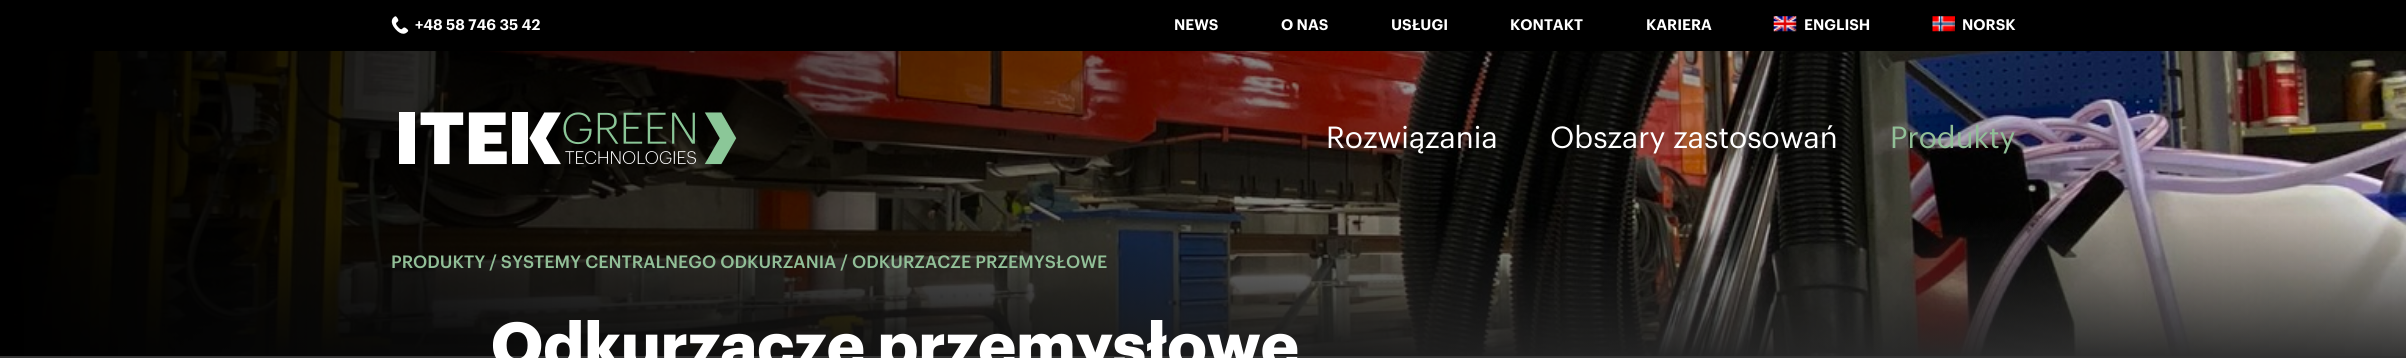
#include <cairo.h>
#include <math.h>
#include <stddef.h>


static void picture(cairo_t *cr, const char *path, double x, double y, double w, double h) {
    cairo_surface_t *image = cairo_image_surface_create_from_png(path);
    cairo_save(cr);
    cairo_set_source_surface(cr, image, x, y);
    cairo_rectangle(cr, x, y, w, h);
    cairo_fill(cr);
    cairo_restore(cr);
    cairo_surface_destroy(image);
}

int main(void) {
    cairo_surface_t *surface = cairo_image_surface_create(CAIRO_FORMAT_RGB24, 2406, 358);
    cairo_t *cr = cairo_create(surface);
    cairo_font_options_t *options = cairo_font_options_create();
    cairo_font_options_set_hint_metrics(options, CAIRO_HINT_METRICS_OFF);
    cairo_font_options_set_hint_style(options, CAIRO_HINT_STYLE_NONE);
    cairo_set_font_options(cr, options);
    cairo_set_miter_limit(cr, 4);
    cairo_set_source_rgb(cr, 0.2, 0.2, 0.2);
    cairo_paint(cr);
    cairo_set_source_rgb(cr, 0, 0, 0);
    cairo_rectangle(cr, 0, 0, 2406, 51);
    cairo_fill(cr);
    picture(cr, "img1.png", 391, 16, 18, 18);
    cairo_select_font_face(cr, "Graphik SemiBold", CAIRO_FONT_SLANT_NORMAL, CAIRO_FONT_WEIGHT_NORMAL);
    cairo_set_font_size(cr, 15);
    cairo_set_source_rgb(cr, 1, 1, 1);
    cairo_move_to(cr, 415, 30);
    cairo_show_text(cr, "+48 58 746 35 42");
    cairo_move_to(cr, 1174, 30);
    cairo_show_text(cr, "NEWS");
    cairo_move_to(cr, 1281, 30);
    cairo_show_text(cr, "O NAS");
    cairo_move_to(cr, 1391, 30);
    cairo_show_text(cr, "USŁUGI");
    cairo_move_to(cr, 1510, 30);
    cairo_show_text(cr, "KONTAKT");
    cairo_move_to(cr, 1646, 30);
    cairo_show_text(cr, "KARIERA");
    picture(cr, "img2.png", 1773, 16, 24, 16);
    cairo_move_to(cr, 1804, 30);
    cairo_show_text(cr, "ENGLISH");
    picture(cr, "img3.png", 1932, 16, 23, 16);
    cairo_move_to(cr, 1962, 30);
    cairo_show_text(cr, "NORSK");
    picture(cr, "img5.png", 0, 51, 2406, 305);
    picture(cr, "img4.png", 399, 112, 338, 53);
    cairo_select_font_face(cr, "Graphik", CAIRO_FONT_SLANT_NORMAL, CAIRO_FONT_WEIGHT_NORMAL);
    cairo_set_font_size(cr, 30);
    cairo_move_to(cr, 1326, 148);
    cairo_show_text(cr, "Rozwiązania");
    cairo_move_to(cr, 1550, 148);
    cairo_show_text(cr, "Obszary zastosowań");
    cairo_set_source_rgb(cr, 0.569, 0.749, 0.592);
    cairo_move_to(cr, 1890, 148);
    cairo_show_text(cr, "Produkty");
    cairo_select_font_face(cr, "Graphik Medium", CAIRO_FONT_SLANT_NORMAL, CAIRO_FONT_WEIGHT_NORMAL);
    cairo_set_font_size(cr, 17.5);
    cairo_move_to(cr, 391, 268);
    cairo_show_text(cr, "PRODUKTY / SYSTEMY CENTRALNEGO ODKURZANIA / ODKURZACZE PRZEMYSŁOWE");
    cairo_select_font_face(cr, "Graphik", CAIRO_FONT_SLANT_NORMAL, CAIRO_FONT_WEIGHT_BOLD);
    cairo_set_font_size(cr, 63.75);
    cairo_set_source_rgb(cr, 1, 1, 1);
    cairo_move_to(cr, 491, 368);
    cairo_show_text(cr, "Odkurzacze przemysłowe");
    cairo_surface_write_to_png(surface, "page.png");
    cairo_font_options_destroy(options);
    cairo_destroy(cr);
    cairo_surface_destroy(surface);
    return 0;
}
